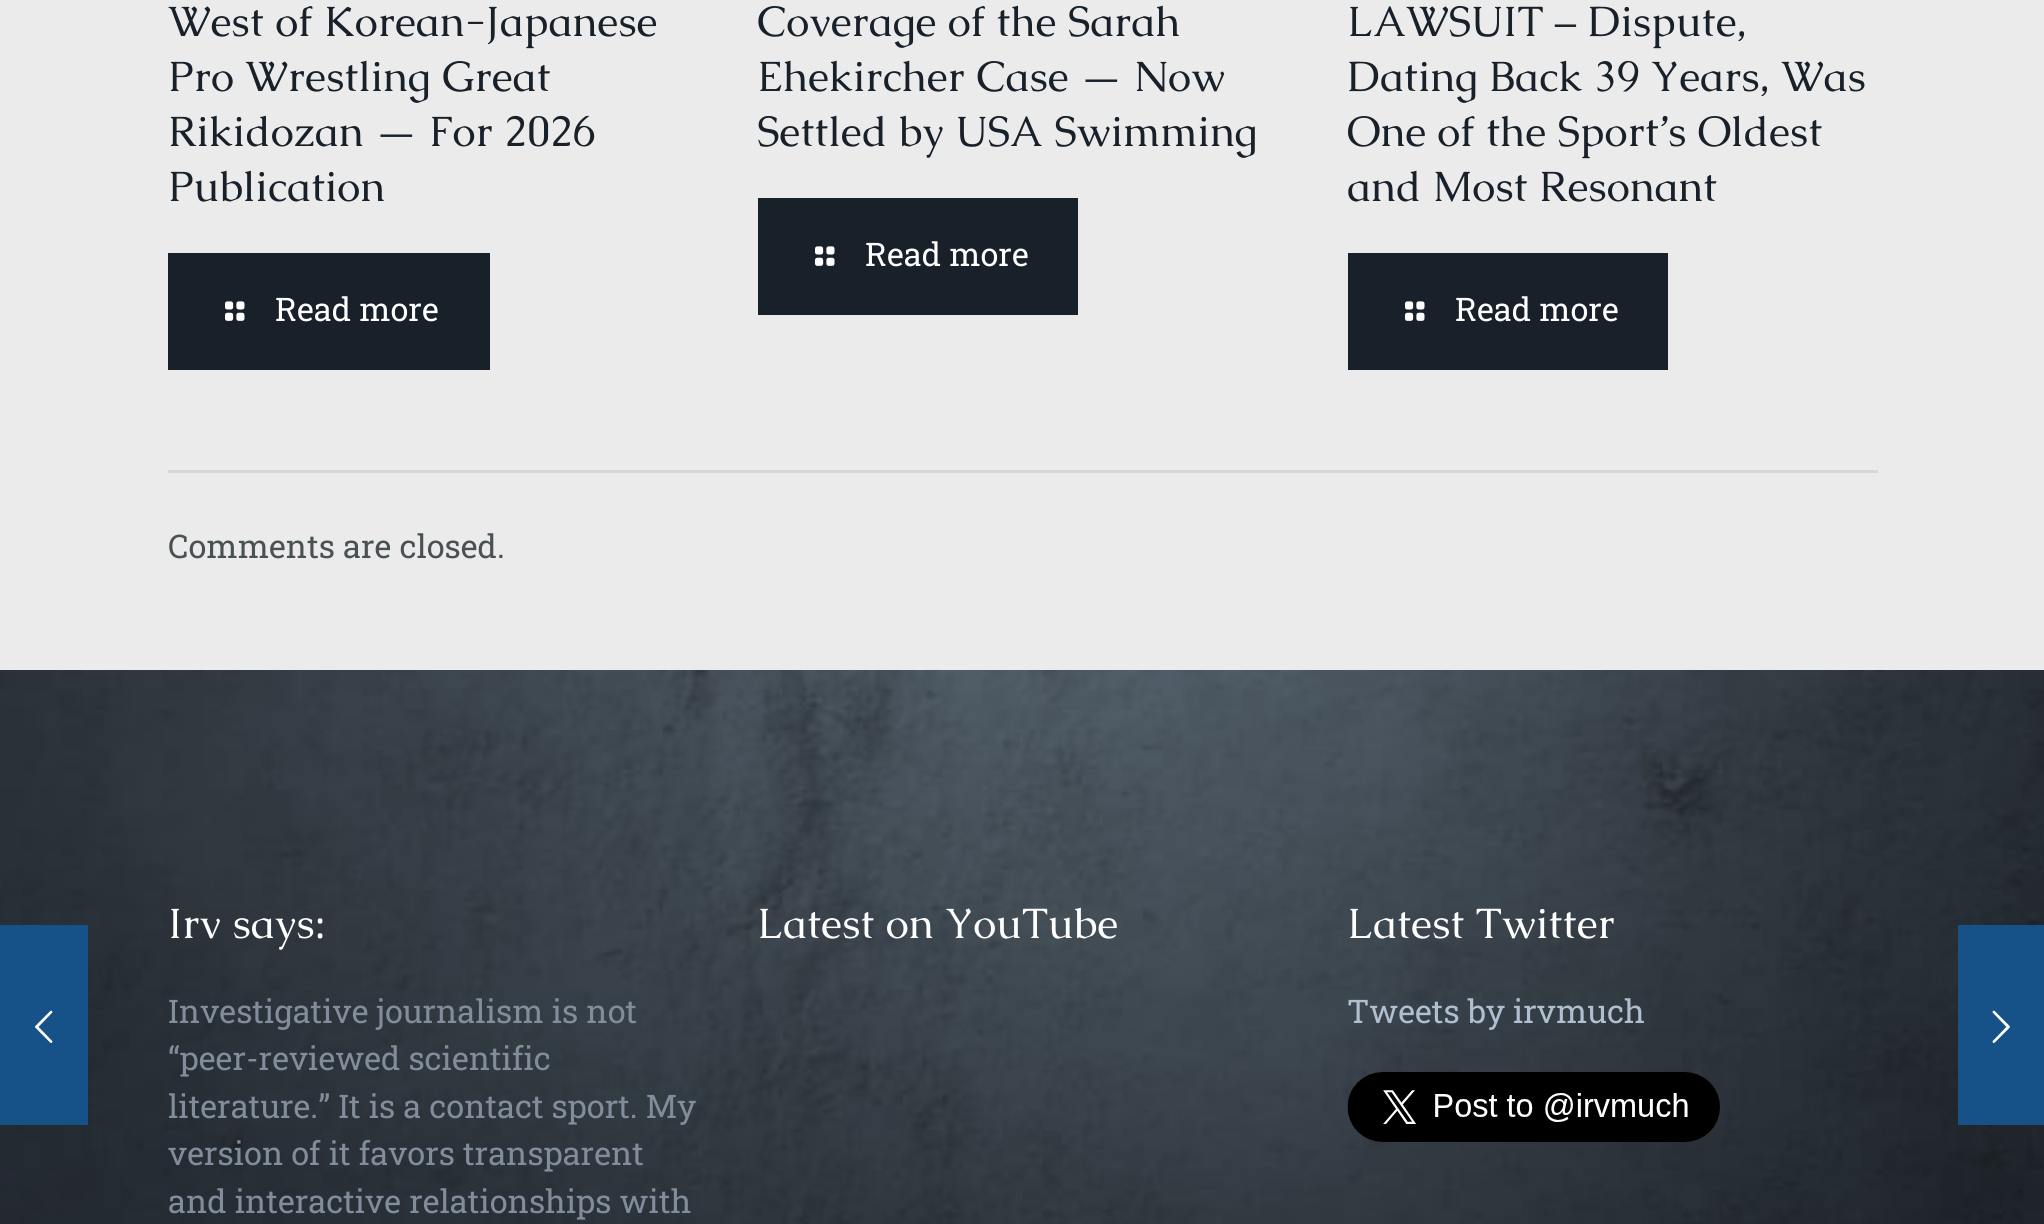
#include <cairo.h>
#include <math.h>
#include <stddef.h>


static void picture(cairo_t *cr, const char *path, double x, double y, double w, double h) {
    cairo_surface_t *image = cairo_image_surface_create_from_png(path);
    cairo_save(cr);
    cairo_set_source_surface(cr, image, x, y);
    cairo_rectangle(cr, x, y, w, h);
    cairo_fill(cr);
    cairo_restore(cr);
    cairo_surface_destroy(image);
}

int main(void) {
    cairo_surface_t *surface = cairo_image_surface_create(CAIRO_FORMAT_RGB24, 2044, 1224);
    cairo_t *cr = cairo_create(surface);
    cairo_font_options_t *options = cairo_font_options_create();
    cairo_font_options_set_hint_metrics(options, CAIRO_HINT_METRICS_OFF);
    cairo_font_options_set_hint_style(options, CAIRO_HINT_STYLE_NONE);
    cairo_set_font_options(cr, options);
    cairo_set_miter_limit(cr, 4);
    cairo_set_source_rgb(cr, 1, 1, 1);
    cairo_paint(cr);
    picture(cr, "img3.png", 0, 670, 2044, 554);
    cairo_set_source_rgb(cr, 0.086, 0.322, 0.529);
    cairo_rectangle(cr, 0, 925, 88, 200);
    cairo_fill(cr);
    picture(cr, "img1.png", 35, 1010, 18, 33);
    cairo_set_source_rgb(cr, 0.918, 0.918, 0.918);
    cairo_rectangle(cr, 0, 0, 2044, 670);
    cairo_fill(cr);
    cairo_select_font_face(cr, "Caudex", CAIRO_FONT_SLANT_NORMAL, CAIRO_FONT_WEIGHT_NORMAL);
    cairo_set_font_size(cr, 42.5);
    cairo_set_source_rgb(cr, 0.094, 0.125, 0.165);
    cairo_move_to(cr, 168, 36);
    cairo_show_text(cr, "West of Korean-Japanese");
    cairo_move_to(cr, 168, 91);
    cairo_show_text(cr, "Pro Wrestling Great");
    cairo_move_to(cr, 168, 146);
    cairo_show_text(cr, "Rikidozan — For 2026");
    cairo_move_to(cr, 168, 201);
    cairo_show_text(cr, "Publication");
    cairo_rectangle(cr, 168, 253, 322, 117);
    cairo_fill(cr);
    picture(cr, "img2.png", 225, 301, 20, 20);
    cairo_select_font_face(cr, "Roboto Slab", CAIRO_FONT_SLANT_NORMAL, CAIRO_FONT_WEIGHT_NORMAL);
    cairo_set_font_size(cr, 32.5);
    cairo_set_source_rgb(cr, 1, 1, 1);
    cairo_move_to(cr, 275, 321);
    cairo_show_text(cr, "Read more");
    cairo_select_font_face(cr, "Caudex", CAIRO_FONT_SLANT_NORMAL, CAIRO_FONT_WEIGHT_NORMAL);
    cairo_set_font_size(cr, 42.5);
    cairo_set_source_rgb(cr, 0.094, 0.125, 0.165);
    cairo_move_to(cr, 757, 36);
    cairo_show_text(cr, "Coverage of the Sarah");
    cairo_move_to(cr, 757, 91);
    cairo_show_text(cr, "Ehekircher Case — Now");
    cairo_move_to(cr, 757, 146);
    cairo_show_text(cr, "Settled by USA Swimming");
    cairo_rectangle(cr, 758, 198, 320, 117);
    cairo_fill(cr);
    picture(cr, "img2.png", 815, 246, 20, 20);
    cairo_select_font_face(cr, "Roboto Slab", CAIRO_FONT_SLANT_NORMAL, CAIRO_FONT_WEIGHT_NORMAL);
    cairo_set_font_size(cr, 32.5);
    cairo_set_source_rgb(cr, 1, 1, 1);
    cairo_move_to(cr, 865, 266);
    cairo_show_text(cr, "Read more");
    cairo_select_font_face(cr, "Caudex", CAIRO_FONT_SLANT_NORMAL, CAIRO_FONT_WEIGHT_NORMAL);
    cairo_set_font_size(cr, 42.5);
    cairo_set_source_rgb(cr, 0.094, 0.125, 0.165);
    cairo_move_to(cr, 1347, 36);
    cairo_show_text(cr, "LAWSUIT – Dispute,");
    cairo_move_to(cr, 1347, 91);
    cairo_show_text(cr, "Dating Back 39 Years, Was");
    cairo_move_to(cr, 1347, 146);
    cairo_show_text(cr, "One of the Sport’s Oldest");
    cairo_move_to(cr, 1347, 201);
    cairo_show_text(cr, "and Most Resonant");
    cairo_rectangle(cr, 1348, 253, 320, 117);
    cairo_fill(cr);
    picture(cr, "img2.png", 1405, 301, 20, 20);
    cairo_select_font_face(cr, "Roboto Slab", CAIRO_FONT_SLANT_NORMAL, CAIRO_FONT_WEIGHT_NORMAL);
    cairo_set_font_size(cr, 32.5);
    cairo_set_source_rgb(cr, 1, 1, 1);
    cairo_move_to(cr, 1455, 321);
    cairo_show_text(cr, "Read more");
    cairo_set_source_rgb(cr, 0.843, 0.843, 0.843);
    cairo_rectangle(cr, 168, 470, 1710, 3);
    cairo_fill(cr);
    cairo_set_source_rgb(cr, 0.29, 0.318, 0.329);
    cairo_move_to(cr, 168, 558);
    cairo_show_text(cr, "Comments are closed.");
    cairo_select_font_face(cr, "Caudex", CAIRO_FONT_SLANT_NORMAL, CAIRO_FONT_WEIGHT_NORMAL);
    cairo_set_font_size(cr, 42.5);
    cairo_set_source_rgb(cr, 1, 1, 1);
    cairo_move_to(cr, 168, 938);
    cairo_show_text(cr, "Irv says:");
    cairo_select_font_face(cr, "Roboto Slab", CAIRO_FONT_SLANT_NORMAL, CAIRO_FONT_WEIGHT_NORMAL);
    cairo_set_font_size(cr, 32.5);
    cairo_set_source_rgb(cr, 0.506, 0.553, 0.604);
    cairo_move_to(cr, 168, 1023);
    cairo_show_text(cr, "Investigative journalism is not");
    cairo_move_to(cr, 168, 1070);
    cairo_show_text(cr, "“peer-reviewed scientific");
    cairo_move_to(cr, 168, 1118);
    cairo_show_text(cr, "literature.” It is a contact sport. My");
    cairo_move_to(cr, 168, 1165);
    cairo_show_text(cr, "version of it favors transparent");
    cairo_move_to(cr, 168, 1213);
    cairo_show_text(cr, "and interactive relationships with");
    cairo_select_font_face(cr, "Caudex", CAIRO_FONT_SLANT_NORMAL, CAIRO_FONT_WEIGHT_NORMAL);
    cairo_set_font_size(cr, 42.5);
    cairo_set_source_rgb(cr, 1, 1, 1);
    cairo_move_to(cr, 757, 938);
    cairo_show_text(cr, "Latest on YouTube");
    cairo_move_to(cr, 1347, 938);
    cairo_show_text(cr, "Latest Twitter");
    cairo_select_font_face(cr, "Roboto Slab", CAIRO_FONT_SLANT_NORMAL, CAIRO_FONT_WEIGHT_NORMAL);
    cairo_set_font_size(cr, 32.5);
    cairo_set_source_rgb(cr, 0.686, 0.749, 0.812);
    cairo_move_to(cr, 1347, 1023);
    cairo_show_text(cr, "Tweets by irvmuch");
    picture(cr, "img4.png", 1347, 1072, 373, 70);
    cairo_set_source_rgb(cr, 0.086, 0.322, 0.529);
    cairo_rectangle(cr, 1958, 925, 86, 200);
    cairo_fill(cr);
    picture(cr, "img5.png", 1992, 1010, 18, 33);
    cairo_surface_write_to_png(surface, "page.png");
    cairo_font_options_destroy(options);
    cairo_destroy(cr);
    cairo_surface_destroy(surface);
    return 0;
}
